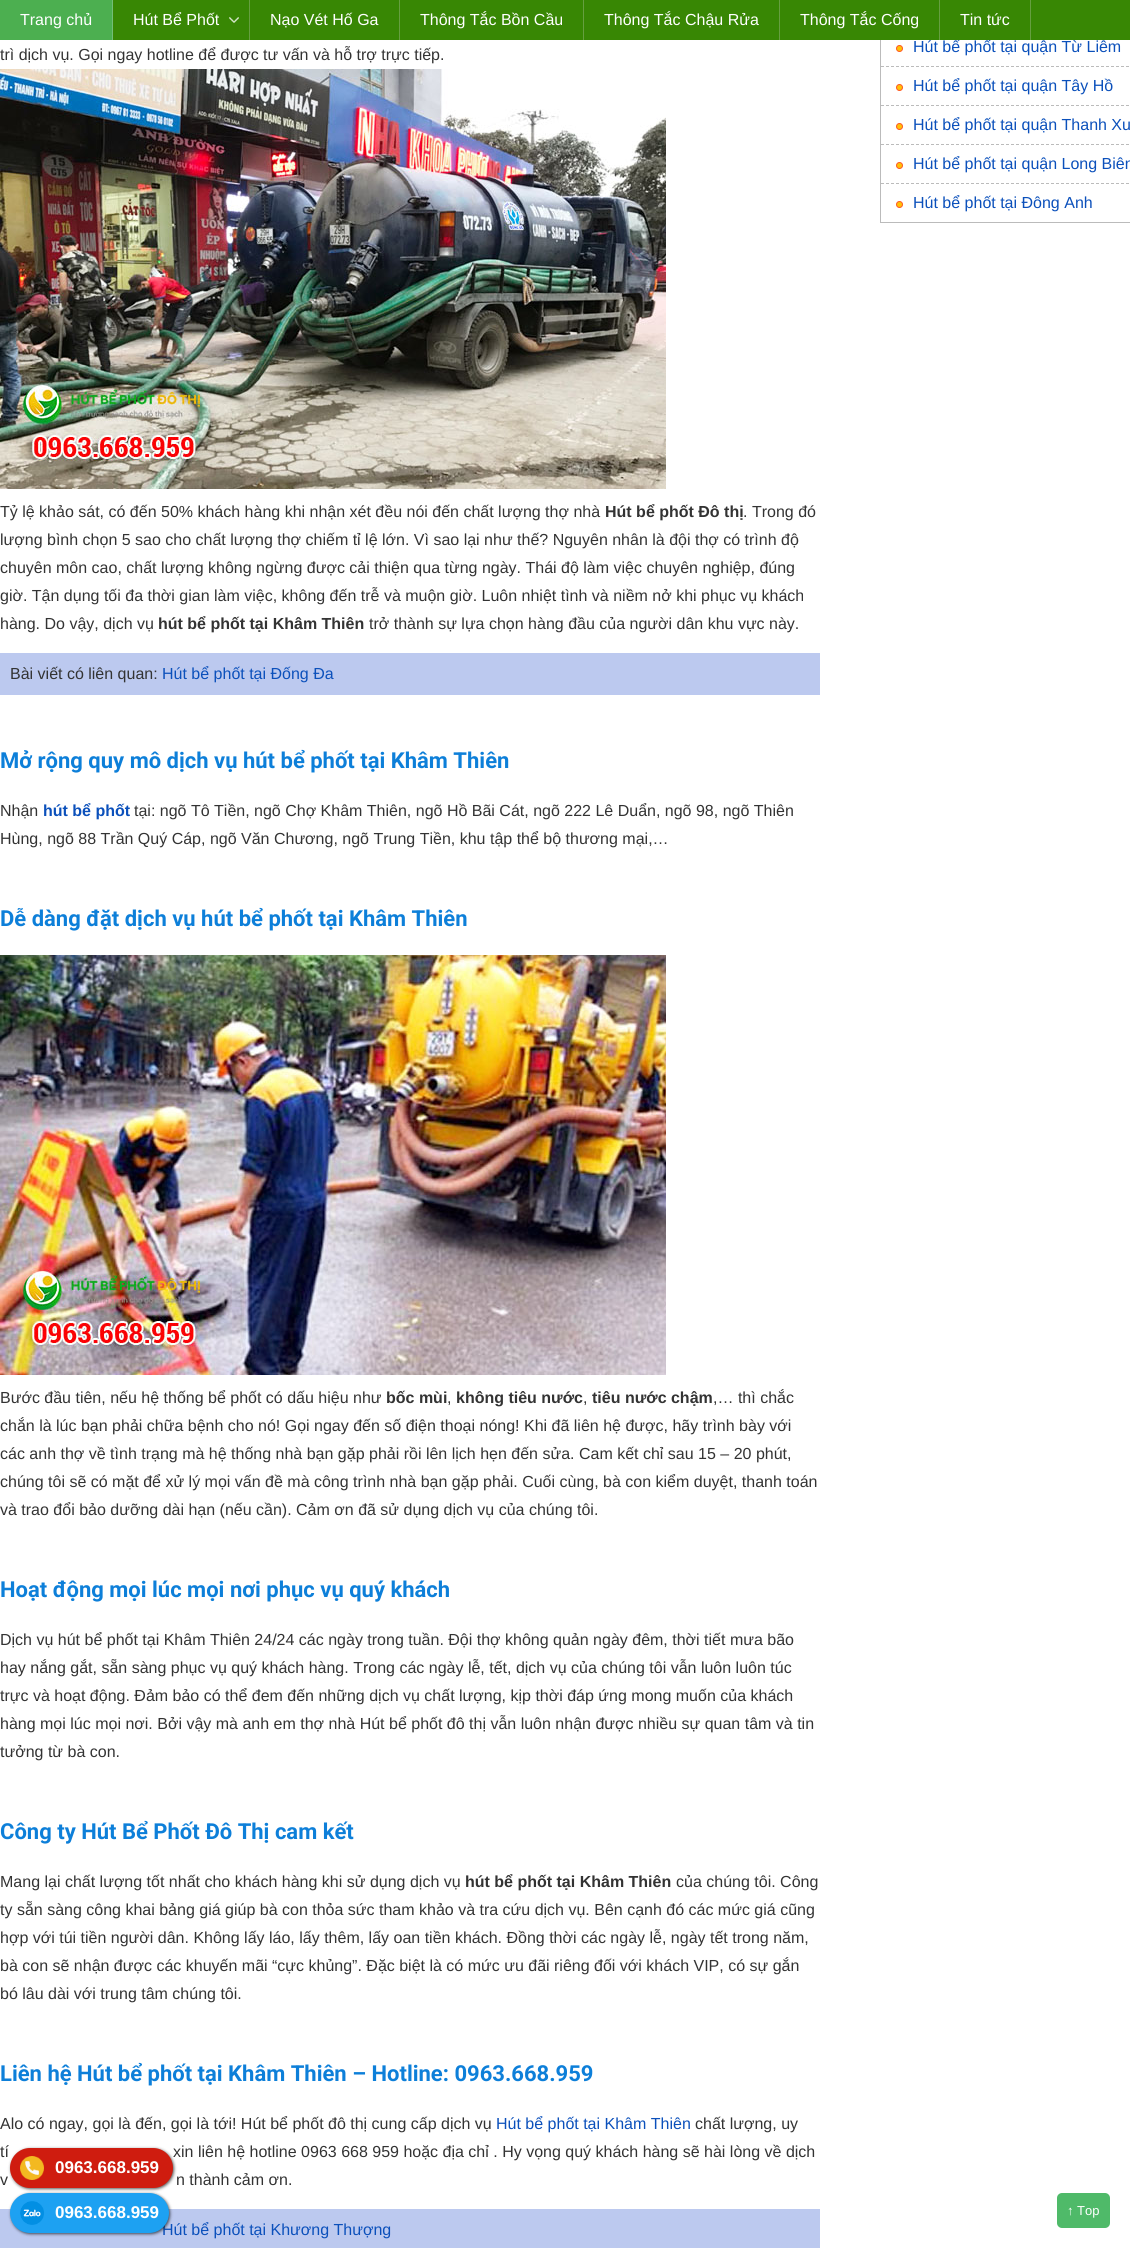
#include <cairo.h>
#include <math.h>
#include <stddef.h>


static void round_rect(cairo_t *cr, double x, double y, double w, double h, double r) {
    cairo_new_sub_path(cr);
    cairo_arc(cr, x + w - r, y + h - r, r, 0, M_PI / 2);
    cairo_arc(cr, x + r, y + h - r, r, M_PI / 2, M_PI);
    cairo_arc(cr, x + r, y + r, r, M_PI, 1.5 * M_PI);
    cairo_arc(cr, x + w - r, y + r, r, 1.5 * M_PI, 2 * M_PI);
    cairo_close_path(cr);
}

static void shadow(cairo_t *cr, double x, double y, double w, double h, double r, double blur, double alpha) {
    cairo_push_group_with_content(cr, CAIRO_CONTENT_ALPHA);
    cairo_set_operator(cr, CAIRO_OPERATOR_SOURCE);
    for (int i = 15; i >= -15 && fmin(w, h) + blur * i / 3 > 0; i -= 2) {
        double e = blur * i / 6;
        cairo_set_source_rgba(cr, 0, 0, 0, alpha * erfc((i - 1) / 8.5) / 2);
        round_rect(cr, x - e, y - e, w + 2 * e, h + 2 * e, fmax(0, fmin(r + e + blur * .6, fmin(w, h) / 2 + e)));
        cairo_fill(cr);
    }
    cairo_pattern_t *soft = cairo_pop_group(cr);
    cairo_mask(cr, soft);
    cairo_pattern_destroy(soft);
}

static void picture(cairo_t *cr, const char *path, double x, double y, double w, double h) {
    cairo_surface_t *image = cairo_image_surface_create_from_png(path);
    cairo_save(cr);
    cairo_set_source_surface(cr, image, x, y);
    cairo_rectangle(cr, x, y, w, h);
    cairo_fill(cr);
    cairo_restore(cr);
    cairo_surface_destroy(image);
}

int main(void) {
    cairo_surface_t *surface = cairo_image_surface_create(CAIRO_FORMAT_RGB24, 1130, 2248);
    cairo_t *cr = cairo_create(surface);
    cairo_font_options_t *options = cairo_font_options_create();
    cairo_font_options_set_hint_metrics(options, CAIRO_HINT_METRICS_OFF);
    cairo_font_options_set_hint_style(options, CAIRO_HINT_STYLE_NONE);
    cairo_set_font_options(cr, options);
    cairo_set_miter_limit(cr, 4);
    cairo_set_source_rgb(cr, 1, 1, 1);
    cairo_paint(cr);
    cairo_rectangle(cr, 880.5, -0.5, 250, 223);
    cairo_set_source_rgb(cr, 0.733, 0.733, 0.733);
    cairo_set_line_width(cr, 1);
    cairo_stroke(cr);
    cairo_select_font_face(cr, "Liberation Sans", CAIRO_FONT_SLANT_NORMAL, CAIRO_FONT_WEIGHT_NORMAL);
    cairo_set_font_size(cr, 16);
    cairo_set_source_rgb(cr, 0.043, 0.314, 0.733);
    cairo_move_to(cr, 913, 52);
    cairo_show_text(cr, "Hút bể phốt tại quận Từ Liêm");
    cairo_set_source_rgb(cr, 0.22, 0.529, 0.016);
    cairo_rectangle(cr, 113, 0, 1017, 40);
    cairo_fill(cr);
    cairo_set_source_rgb(cr, 0.298, 0.686, 0.314);
    cairo_rectangle(cr, 0, 0, 112, 40);
    cairo_fill(cr);
    cairo_set_source_rgb(cr, 0.455, 0.741, 0.467);
    cairo_rectangle(cr, 112, 0, 1, 40);
    cairo_fill(cr);
    cairo_set_source_rgb(cr, 1, 1, 1);
    cairo_move_to(cr, 20, 25);
    cairo_show_text(cr, "Trang chủ");
    picture(cr, "img1.png", 229, 17, 10, 6);
    cairo_set_source_rgb(cr, 0.4, 0.624, 0.251);
    cairo_rectangle(cr, 249, 0, 1, 40);
    cairo_fill(cr);
    cairo_set_source_rgb(cr, 1, 1, 1);
    cairo_move_to(cr, 133, 25);
    cairo_show_text(cr, "Hút Bể Phốt");
    cairo_set_source_rgb(cr, 0.4, 0.624, 0.251);
    cairo_rectangle(cr, 399, 0, 1, 40);
    cairo_fill(cr);
    cairo_set_source_rgb(cr, 1, 1, 1);
    cairo_move_to(cr, 270, 25);
    cairo_show_text(cr, "Nạo Vét Hố Ga");
    cairo_set_source_rgb(cr, 0.4, 0.624, 0.251);
    cairo_rectangle(cr, 583, 0, 1, 40);
    cairo_fill(cr);
    cairo_set_source_rgb(cr, 1, 1, 1);
    cairo_move_to(cr, 420, 25);
    cairo_show_text(cr, "Thông Tắc Bồn Cầu");
    cairo_set_source_rgb(cr, 0.4, 0.624, 0.251);
    cairo_rectangle(cr, 779, 0, 1, 40);
    cairo_fill(cr);
    cairo_set_source_rgb(cr, 1, 1, 1);
    cairo_move_to(cr, 604, 25);
    cairo_show_text(cr, "Thông Tắc Chậu Rửa");
    cairo_set_source_rgb(cr, 0.4, 0.624, 0.251);
    cairo_rectangle(cr, 939, 0, 1, 40);
    cairo_fill(cr);
    cairo_set_source_rgb(cr, 1, 1, 1);
    cairo_move_to(cr, 800, 25);
    cairo_show_text(cr, "Thông Tắc Cống");
    cairo_set_source_rgb(cr, 0.4, 0.624, 0.251);
    cairo_rectangle(cr, 1030, 0, 1, 40);
    cairo_fill(cr);
    cairo_set_source_rgb(cr, 1, 1, 1);
    cairo_move_to(cr, 960, 25);
    cairo_show_text(cr, "Tin tức");
    cairo_set_source_rgb(cr, 0.2, 0.2, 0.2);
    cairo_move_to(cr, 0, 60);
    cairo_show_text(cr, "trì dịch vụ. Gọi ngay hotline để được tư vấn và hỗ trợ trực tiếp.");
    picture(cr, "img2.png", 0, 69, 666, 420);
    cairo_move_to(cr, 0, 517);
    cairo_show_text(cr, "Tỷ lệ khảo sát, có đến 50% khách hàng khi nhận xét đều nói đến chất lượng thợ nhà");
    cairo_select_font_face(cr, "Liberation Sans", CAIRO_FONT_SLANT_NORMAL, CAIRO_FONT_WEIGHT_BOLD);
    cairo_move_to(cr, 605, 517);
    cairo_show_text(cr, "Hút bể phốt Đô thị");
    cairo_select_font_face(cr, "Liberation Sans", CAIRO_FONT_SLANT_NORMAL, CAIRO_FONT_WEIGHT_NORMAL);
    cairo_move_to(cr, 743, 517);
    cairo_show_text(cr, ". Trong đó");
    cairo_move_to(cr, 0, 545);
    cairo_show_text(cr, "lượng bình chọn 5 sao cho chất lượng thợ chiếm tỉ lệ lớn. Vì sao lại như thế? Nguyên nhân là đội thợ có trình độ");
    cairo_move_to(cr, 0, 573);
    cairo_show_text(cr, "chuyên môn cao, chất lượng không ngừng được cải thiện qua từng ngày. Thái độ làm việc chuyên nghiệp, đúng");
    cairo_move_to(cr, 0, 601);
    cairo_show_text(cr, "giờ. Tận dụng tối đa thời gian làm việc, không đến trễ và muộn giờ. Luôn nhiệt tình và niềm nở khi phục vụ khách");
    cairo_move_to(cr, 0, 629);
    cairo_show_text(cr, "hàng. Do vậy, dịch vụ");
    cairo_select_font_face(cr, "Liberation Sans", CAIRO_FONT_SLANT_NORMAL, CAIRO_FONT_WEIGHT_BOLD);
    cairo_move_to(cr, 158, 629);
    cairo_show_text(cr, "hút bể phốt tại Khâm Thiên");
    cairo_select_font_face(cr, "Liberation Sans", CAIRO_FONT_SLANT_NORMAL, CAIRO_FONT_WEIGHT_NORMAL);
    cairo_move_to(cr, 369, 629);
    cairo_show_text(cr, "trở thành sự lựa chọn hàng đầu của người dân khu vực này.");
    cairo_set_source_rgb(cr, 0.737, 0.788, 0.937);
    cairo_rectangle(cr, 0, 653, 820, 42);
    cairo_fill(cr);
    cairo_set_source_rgb(cr, 0.2, 0.2, 0.2);
    cairo_move_to(cr, 10, 679);
    cairo_show_text(cr, "Bài viết có liên quan:");
    cairo_set_source_rgb(cr, 0.043, 0.314, 0.733);
    cairo_move_to(cr, 162, 679);
    cairo_show_text(cr, "Hút bể phốt tại Đống Đa");
    cairo_select_font_face(cr, "Roboto", CAIRO_FONT_SLANT_NORMAL, CAIRO_FONT_WEIGHT_BOLD);
    cairo_set_font_size(cr, 22);
    cairo_set_source_rgb(cr, 0.051, 0.498, 0.851);
    cairo_move_to(cr, 0, 768);
    cairo_show_text(cr, "Mở rộng quy mô dịch vụ hút bể phốt tại Khâm Thiên");
    cairo_select_font_face(cr, "Liberation Sans", CAIRO_FONT_SLANT_NORMAL, CAIRO_FONT_WEIGHT_NORMAL);
    cairo_set_font_size(cr, 16);
    cairo_set_source_rgb(cr, 0.2, 0.2, 0.2);
    cairo_move_to(cr, 0, 816);
    cairo_show_text(cr, "Nhận");
    cairo_select_font_face(cr, "Liberation Sans", CAIRO_FONT_SLANT_NORMAL, CAIRO_FONT_WEIGHT_BOLD);
    cairo_set_source_rgb(cr, 0.043, 0.314, 0.733);
    cairo_move_to(cr, 43, 816);
    cairo_show_text(cr, "hút bể phốt");
    cairo_select_font_face(cr, "Liberation Sans", CAIRO_FONT_SLANT_NORMAL, CAIRO_FONT_WEIGHT_NORMAL);
    cairo_set_source_rgb(cr, 0.2, 0.2, 0.2);
    cairo_move_to(cr, 134, 816);
    cairo_show_text(cr, "tại: ngõ Tô Tiền, ngõ Chợ Khâm Thiên, ngõ Hồ Bãi Cát, ngõ 222 Lê Duẩn, ngõ 98, ngõ Thiên");
    cairo_move_to(cr, 0, 844);
    cairo_show_text(cr, "Hùng, ngõ 88 Trần Quý Cáp, ngõ Văn Chương, ngõ Trung Tiền, khu tập thể bộ thương mại,…");
    cairo_select_font_face(cr, "Roboto", CAIRO_FONT_SLANT_NORMAL, CAIRO_FONT_WEIGHT_BOLD);
    cairo_set_font_size(cr, 22);
    cairo_set_source_rgb(cr, 0.051, 0.498, 0.851);
    cairo_move_to(cr, 0, 926);
    cairo_show_text(cr, "Dễ dàng đặt dịch vụ hút bể phốt tại Khâm Thiên");
    picture(cr, "img3.png", 0, 955, 666, 420);
    cairo_select_font_face(cr, "Liberation Sans", CAIRO_FONT_SLANT_NORMAL, CAIRO_FONT_WEIGHT_NORMAL);
    cairo_set_font_size(cr, 16);
    cairo_set_source_rgb(cr, 0.2, 0.2, 0.2);
    cairo_move_to(cr, 0, 1403);
    cairo_show_text(cr, "Bước đầu tiên, nếu hệ thống bể phốt có dấu hiệu như");
    cairo_select_font_face(cr, "Liberation Sans", CAIRO_FONT_SLANT_NORMAL, CAIRO_FONT_WEIGHT_BOLD);
    cairo_move_to(cr, 386, 1403);
    cairo_show_text(cr, "bốc mùi");
    cairo_select_font_face(cr, "Liberation Sans", CAIRO_FONT_SLANT_NORMAL, CAIRO_FONT_WEIGHT_NORMAL);
    cairo_move_to(cr, 447, 1403);
    cairo_show_text(cr, ",");
    cairo_select_font_face(cr, "Liberation Sans", CAIRO_FONT_SLANT_NORMAL, CAIRO_FONT_WEIGHT_BOLD);
    cairo_move_to(cr, 456, 1403);
    cairo_show_text(cr, "không tiêu nước");
    cairo_select_font_face(cr, "Liberation Sans", CAIRO_FONT_SLANT_NORMAL, CAIRO_FONT_WEIGHT_NORMAL);
    cairo_move_to(cr, 583, 1403);
    cairo_show_text(cr, ",");
    cairo_select_font_face(cr, "Liberation Sans", CAIRO_FONT_SLANT_NORMAL, CAIRO_FONT_WEIGHT_BOLD);
    cairo_move_to(cr, 592, 1403);
    cairo_show_text(cr, "tiêu nước chậm");
    cairo_select_font_face(cr, "Liberation Sans", CAIRO_FONT_SLANT_NORMAL, CAIRO_FONT_WEIGHT_NORMAL);
    cairo_move_to(cr, 713, 1403);
    cairo_show_text(cr, ",… thì chắc");
    cairo_move_to(cr, 0, 1431);
    cairo_show_text(cr, "chắn là lúc bạn phải chữa bệnh cho nó! Gọi ngay đến số điện thoại nóng! Khi đã liên hệ được, hãy trình bày với");
    cairo_move_to(cr, 0, 1459);
    cairo_show_text(cr, "các anh thợ về tình trạng mà hệ thống nhà bạn gặp phải rồi lên lịch hẹn đến sửa. Cam kết chỉ sau 15 – 20 phút,");
    cairo_move_to(cr, 0, 1487);
    cairo_show_text(cr, "chúng tôi sẽ có mặt để xử lý mọi vấn đề mà công trình nhà bạn gặp phải. Cuối cùng, bà con kiểm duyệt, thanh toán");
    cairo_move_to(cr, 0, 1515);
    cairo_show_text(cr, "và trao đổi bảo dưỡng dài hạn (nếu cần). Cảm ơn đã sử dụng dịch vụ của chúng tôi.");
    cairo_select_font_face(cr, "Roboto", CAIRO_FONT_SLANT_NORMAL, CAIRO_FONT_WEIGHT_BOLD);
    cairo_set_font_size(cr, 22);
    cairo_set_source_rgb(cr, 0.051, 0.498, 0.851);
    cairo_move_to(cr, 0, 1597);
    cairo_show_text(cr, "Hoạt động mọi lúc mọi nơi phục vụ quý khách");
    cairo_select_font_face(cr, "Liberation Sans", CAIRO_FONT_SLANT_NORMAL, CAIRO_FONT_WEIGHT_NORMAL);
    cairo_set_font_size(cr, 16);
    cairo_set_source_rgb(cr, 0.2, 0.2, 0.2);
    cairo_move_to(cr, 0, 1645);
    cairo_show_text(cr, "Dịch vụ hút bể phốt tại Khâm Thiên 24/24 các ngày trong tuần. Đội thợ không quản ngày đêm, thời tiết mưa bão");
    cairo_move_to(cr, 0, 1673);
    cairo_show_text(cr, "hay nắng gắt, sẵn sàng phục vụ quý khách hàng. Trong các ngày lễ, tết, dịch vụ của chúng tôi vẫn luôn luôn túc");
    cairo_move_to(cr, 0, 1701);
    cairo_show_text(cr, "trực và hoạt động. Đảm bảo có thể đem đến những dịch vụ chất lượng, kịp thời đáp ứng mong muốn của khách");
    cairo_move_to(cr, 0, 1729);
    cairo_show_text(cr, "hàng mọi lúc mọi nơi. Bởi vậy mà anh em thợ nhà Hút bể phốt đô thị vẫn luôn nhận được nhiều sự quan tâm và tin");
    cairo_move_to(cr, 0, 1757);
    cairo_show_text(cr, "tưởng từ bà con.");
    cairo_select_font_face(cr, "Roboto", CAIRO_FONT_SLANT_NORMAL, CAIRO_FONT_WEIGHT_BOLD);
    cairo_set_font_size(cr, 22);
    cairo_set_source_rgb(cr, 0.051, 0.498, 0.851);
    cairo_move_to(cr, 0, 1839);
    cairo_show_text(cr, "Công ty Hút Bể Phốt Đô Thị cam kết");
    cairo_select_font_face(cr, "Liberation Sans", CAIRO_FONT_SLANT_NORMAL, CAIRO_FONT_WEIGHT_NORMAL);
    cairo_set_font_size(cr, 16);
    cairo_set_source_rgb(cr, 0.2, 0.2, 0.2);
    cairo_move_to(cr, 0, 1887);
    cairo_show_text(cr, "Mang lại chất lượng tốt nhất cho khách hàng khi sử dụng dịch vụ");
    cairo_select_font_face(cr, "Liberation Sans", CAIRO_FONT_SLANT_NORMAL, CAIRO_FONT_WEIGHT_BOLD);
    cairo_move_to(cr, 465, 1887);
    cairo_show_text(cr, "hút bể phốt tại Khâm Thiên");
    cairo_select_font_face(cr, "Liberation Sans", CAIRO_FONT_SLANT_NORMAL, CAIRO_FONT_WEIGHT_NORMAL);
    cairo_move_to(cr, 676, 1887);
    cairo_show_text(cr, "của chúng tôi. Công");
    cairo_move_to(cr, 0, 1915);
    cairo_show_text(cr, "ty sẵn sàng công khai bảng giá giúp bà con thỏa sức tham khảo và tra cứu dịch vụ. Bên cạnh đó các mức giá cũng");
    cairo_move_to(cr, 0, 1943);
    cairo_show_text(cr, "hợp với túi tiền người dân. Không lấy láo, lấy thêm, lấy oan tiền khách. Đồng thời các ngày lễ, ngày tết trong năm,");
    cairo_move_to(cr, 0, 1971);
    cairo_show_text(cr, "bà con sẽ nhận được các khuyến mãi “cực khủng”. Đặc biệt là có mức ưu đãi riêng đối với khách VIP, có sự gắn");
    cairo_move_to(cr, 0, 1999);
    cairo_show_text(cr, "bó lâu dài với trung tâm chúng tôi.");
    cairo_select_font_face(cr, "Roboto", CAIRO_FONT_SLANT_NORMAL, CAIRO_FONT_WEIGHT_BOLD);
    cairo_set_font_size(cr, 22);
    cairo_set_source_rgb(cr, 0.051, 0.498, 0.851);
    cairo_move_to(cr, 0, 2081);
    cairo_show_text(cr, "Liên hệ Hút bể phốt tại Khâm Thiên – Hotline: 0963.668.959");
    cairo_select_font_face(cr, "Liberation Sans", CAIRO_FONT_SLANT_NORMAL, CAIRO_FONT_WEIGHT_NORMAL);
    cairo_set_font_size(cr, 16);
    cairo_set_source_rgb(cr, 0.2, 0.2, 0.2);
    cairo_move_to(cr, 0, 2129);
    cairo_show_text(cr, "Alo có ngay, gọi là đến, gọi là tới! Hút bể phốt đô thị cung cấp dịch vụ");
    cairo_set_source_rgb(cr, 0.043, 0.314, 0.733);
    cairo_move_to(cr, 496, 2129);
    cairo_show_text(cr, "Hút bể phốt tại Khâm Thiên");
    cairo_set_source_rgb(cr, 0.2, 0.2, 0.2);
    cairo_move_to(cr, 695, 2129);
    cairo_show_text(cr, "chất lượng, uy");
    cairo_move_to(cr, 0, 2157);
    cairo_show_text(cr, "tí");
    cairo_move_to(cr, 173, 2157);
    cairo_show_text(cr, "xin liên hệ hotline 0963 668 959 hoặc địa chỉ . Hy vọng quý khách hàng sẽ hài lòng về dịch");
    cairo_move_to(cr, 0, 2185);
    cairo_show_text(cr, "v");
    cairo_move_to(cr, 176, 2185);
    cairo_show_text(cr, "n thành cảm ơn.");
    cairo_set_source_rgb(cr, 0.737, 0.788, 0.937);
    cairo_rectangle(cr, 0, 2209, 820, 39);
    cairo_fill(cr);
    cairo_set_source_rgb(cr, 0.043, 0.314, 0.733);
    cairo_move_to(cr, 162, 2235);
    cairo_show_text(cr, "Hút bể phốt tại Khương Thượng");
    cairo_new_path(cr);
    cairo_move_to(cr, 881, 66.5);
    cairo_line_to(cr, 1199, 66.5);
    cairo_set_source_rgb(cr, 0.733, 0.733, 0.733);
    cairo_set_dash(cr, (double[]){3, 2}, 2, 0);
    cairo_stroke(cr);
    cairo_set_source_rgb(cr, 1, 0.757, 0.027);
    cairo_arc(cr, 899.5, 48.5, 3, 0, 2 * M_PI);
    cairo_fill_preserve(cr);
    cairo_set_source_rgb(cr, 1, 0.341, 0.133);
    cairo_set_dash(cr, NULL, 0, 0);
    cairo_stroke(cr);
    cairo_new_path(cr);
    cairo_move_to(cr, 881, 105.5);
    cairo_line_to(cr, 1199, 105.5);
    cairo_set_source_rgb(cr, 0.733, 0.733, 0.733);
    cairo_set_dash(cr, (double[]){3, 2}, 2, 0);
    cairo_stroke(cr);
    cairo_set_source_rgb(cr, 1, 0.757, 0.027);
    cairo_arc(cr, 899.5, 87.5, 3, 0, 2 * M_PI);
    cairo_fill_preserve(cr);
    cairo_set_source_rgb(cr, 1, 0.341, 0.133);
    cairo_set_dash(cr, NULL, 0, 0);
    cairo_stroke(cr);
    cairo_set_source_rgb(cr, 0.043, 0.314, 0.733);
    cairo_move_to(cr, 913, 91);
    cairo_show_text(cr, "Hút bể phốt tại quận Tây Hồ");
    cairo_new_path(cr);
    cairo_move_to(cr, 881, 144.5);
    cairo_line_to(cr, 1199, 144.5);
    cairo_set_source_rgb(cr, 0.733, 0.733, 0.733);
    cairo_set_dash(cr, (double[]){3, 2}, 2, 0);
    cairo_stroke(cr);
    cairo_set_source_rgb(cr, 1, 0.757, 0.027);
    cairo_arc(cr, 899.5, 126.5, 3, 0, 2 * M_PI);
    cairo_fill_preserve(cr);
    cairo_set_source_rgb(cr, 1, 0.341, 0.133);
    cairo_set_dash(cr, NULL, 0, 0);
    cairo_stroke(cr);
    cairo_set_source_rgb(cr, 0.043, 0.314, 0.733);
    cairo_move_to(cr, 913, 130);
    cairo_show_text(cr, "Hút bể phốt tại quận Thanh Xu");
    cairo_new_path(cr);
    cairo_move_to(cr, 881, 183.5);
    cairo_line_to(cr, 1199, 183.5);
    cairo_set_source_rgb(cr, 0.733, 0.733, 0.733);
    cairo_set_dash(cr, (double[]){3, 2}, 2, 0);
    cairo_stroke(cr);
    cairo_set_source_rgb(cr, 1, 0.757, 0.027);
    cairo_arc(cr, 899.5, 165.5, 3, 0, 2 * M_PI);
    cairo_fill_preserve(cr);
    cairo_set_source_rgb(cr, 1, 0.341, 0.133);
    cairo_set_dash(cr, NULL, 0, 0);
    cairo_stroke(cr);
    cairo_set_source_rgb(cr, 0.043, 0.314, 0.733);
    cairo_move_to(cr, 913, 169);
    cairo_show_text(cr, "Hút bể phốt tại quận Long Biên");
    cairo_set_source_rgb(cr, 1, 0.757, 0.027);
    cairo_new_path(cr);
    cairo_arc(cr, 899.5, 204.5, 3, 0, 2 * M_PI);
    cairo_fill_preserve(cr);
    cairo_set_source_rgb(cr, 1, 0.341, 0.133);
    cairo_stroke(cr);
    cairo_set_source_rgb(cr, 0.043, 0.314, 0.733);
    cairo_move_to(cr, 913, 208);
    cairo_show_text(cr, "Hút bể phốt tại Đông Anh");
    cairo_set_source_rgb(cr, 0, 0, 0);
    shadow(cr, 11, 2149, 163, 40, 20, 1.5, 0.66);
    cairo_set_source_rgb(cr, 0.812, 0.11, 0.059);
    round_rect(cr, 10, 2148, 163, 40, 20);
    cairo_fill(cr);
    picture(cr, "img4.png", 20, 2156, 24, 24);
    cairo_select_font_face(cr, "Liberation Sans", CAIRO_FONT_SLANT_NORMAL, CAIRO_FONT_WEIGHT_BOLD);
    cairo_set_font_size(cr, 17);
    cairo_set_source_rgb(cr, 1, 1, 1);
    cairo_move_to(cr, 55, 2173);
    cairo_show_text(cr, "0963.668.959");
    cairo_set_source_rgb(cr, 0, 0, 0);
    shadow(cr, 11, 2194, 159, 40, 20, 1.5, 0.66);
    cairo_set_source_rgb(cr, 0.114, 0.631, 0.949);
    round_rect(cr, 10, 2193, 159, 40, 20);
    cairo_fill(cr);
    picture(cr, "img5.png", 20, 2201, 24, 24);
    cairo_set_source_rgb(cr, 1, 1, 1);
    cairo_move_to(cr, 55, 2218);
    cairo_show_text(cr, "0963.668.959");
    cairo_set_source_rgb(cr, 0.31, 0.729, 0.412);
    round_rect(cr, 1057, 2193, 53, 35, 5);
    cairo_fill(cr);
    cairo_select_font_face(cr, "Liberation Sans", CAIRO_FONT_SLANT_NORMAL, CAIRO_FONT_WEIGHT_NORMAL);
    cairo_set_font_size(cr, 13);
    cairo_set_source_rgb(cr, 1, 1, 1);
    cairo_move_to(cr, 1067, 2215);
    cairo_show_text(cr, "↑ Top");
    cairo_surface_write_to_png(surface, "page.png");
    cairo_font_options_destroy(options);
    cairo_destroy(cr);
    cairo_surface_destroy(surface);
    return 0;
}
